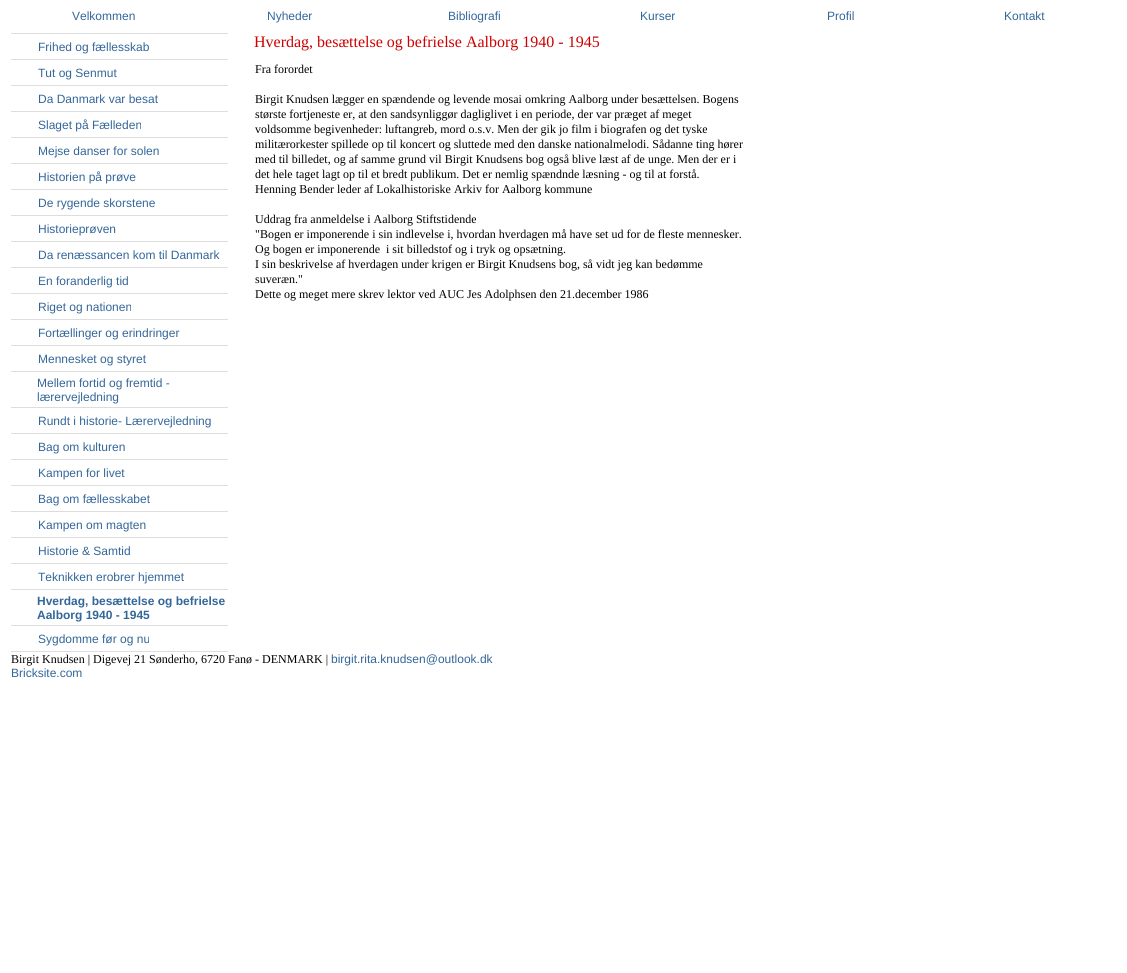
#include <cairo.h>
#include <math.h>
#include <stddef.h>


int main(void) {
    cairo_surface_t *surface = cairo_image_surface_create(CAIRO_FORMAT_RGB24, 1127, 973);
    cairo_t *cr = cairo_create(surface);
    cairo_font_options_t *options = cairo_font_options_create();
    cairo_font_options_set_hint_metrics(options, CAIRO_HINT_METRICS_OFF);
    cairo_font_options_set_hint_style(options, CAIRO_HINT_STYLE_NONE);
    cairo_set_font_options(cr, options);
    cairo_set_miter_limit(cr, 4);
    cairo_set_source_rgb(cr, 1, 1, 1);
    cairo_paint(cr);
    cairo_select_font_face(cr, "Liberation Sans", CAIRO_FONT_SLANT_NORMAL, CAIRO_FONT_WEIGHT_NORMAL);
    cairo_set_font_size(cr, 12);
    cairo_set_source_rgb(cr, 0.2, 0.4, 0.6);
    cairo_move_to(cr, 72, 20);
    cairo_show_text(cr, "Velkommen");
    cairo_move_to(cr, 267, 20);
    cairo_show_text(cr, "Nyheder");
    cairo_move_to(cr, 448, 20);
    cairo_show_text(cr, "Bibliografi");
    cairo_move_to(cr, 640, 20);
    cairo_show_text(cr, "Kurser");
    cairo_move_to(cr, 827, 20);
    cairo_show_text(cr, "Profil");
    cairo_move_to(cr, 1004, 20);
    cairo_show_text(cr, "Kontakt");
    cairo_set_source_rgb(cr, 0.867, 0.867, 0.867);
    cairo_rectangle(cr, 11, 33, 217, 1);
    cairo_fill(cr);
    cairo_set_source_rgb(cr, 0.2, 0.4, 0.6);
    cairo_move_to(cr, 38, 51);
    cairo_show_text(cr, "Frihed og fællesskab");
    cairo_set_source_rgb(cr, 0.867, 0.867, 0.867);
    cairo_rectangle(cr, 11, 59, 217, 1);
    cairo_fill(cr);
    cairo_set_source_rgb(cr, 0.2, 0.4, 0.6);
    cairo_move_to(cr, 38, 77);
    cairo_show_text(cr, "Tut og Senmut");
    cairo_set_source_rgb(cr, 0.867, 0.867, 0.867);
    cairo_rectangle(cr, 11, 85, 217, 1);
    cairo_fill(cr);
    cairo_set_source_rgb(cr, 0.2, 0.4, 0.6);
    cairo_move_to(cr, 38, 103);
    cairo_show_text(cr, "Da Danmark var besat");
    cairo_set_source_rgb(cr, 0.867, 0.867, 0.867);
    cairo_rectangle(cr, 11, 111, 217, 1);
    cairo_fill(cr);
    cairo_set_source_rgb(cr, 0.2, 0.4, 0.6);
    cairo_move_to(cr, 38, 129);
    cairo_show_text(cr, "Slaget på Fælleden");
    cairo_set_source_rgb(cr, 0.867, 0.867, 0.867);
    cairo_rectangle(cr, 11, 137, 217, 1);
    cairo_fill(cr);
    cairo_set_source_rgb(cr, 0.2, 0.4, 0.6);
    cairo_move_to(cr, 38, 155);
    cairo_show_text(cr, "Mejse danser for solen");
    cairo_set_source_rgb(cr, 0.867, 0.867, 0.867);
    cairo_rectangle(cr, 11, 163, 217, 1);
    cairo_fill(cr);
    cairo_set_source_rgb(cr, 0.2, 0.4, 0.6);
    cairo_move_to(cr, 38, 181);
    cairo_show_text(cr, "Historien på prøve");
    cairo_set_source_rgb(cr, 0.867, 0.867, 0.867);
    cairo_rectangle(cr, 11, 189, 217, 1);
    cairo_fill(cr);
    cairo_set_source_rgb(cr, 0.2, 0.4, 0.6);
    cairo_move_to(cr, 38, 207);
    cairo_show_text(cr, "De rygende skorstene");
    cairo_set_source_rgb(cr, 0.867, 0.867, 0.867);
    cairo_rectangle(cr, 11, 215, 217, 1);
    cairo_fill(cr);
    cairo_set_source_rgb(cr, 0.2, 0.4, 0.6);
    cairo_move_to(cr, 38, 233);
    cairo_show_text(cr, "Historieprøven");
    cairo_set_source_rgb(cr, 0.867, 0.867, 0.867);
    cairo_rectangle(cr, 11, 241, 217, 1);
    cairo_fill(cr);
    cairo_set_source_rgb(cr, 0.2, 0.4, 0.6);
    cairo_move_to(cr, 38, 259);
    cairo_show_text(cr, "Da renæssancen kom til Danmark");
    cairo_set_source_rgb(cr, 0.867, 0.867, 0.867);
    cairo_rectangle(cr, 11, 267, 217, 1);
    cairo_fill(cr);
    cairo_set_source_rgb(cr, 0.2, 0.4, 0.6);
    cairo_move_to(cr, 38, 285);
    cairo_show_text(cr, "En foranderlig tid");
    cairo_set_source_rgb(cr, 0.867, 0.867, 0.867);
    cairo_rectangle(cr, 11, 293, 217, 1);
    cairo_fill(cr);
    cairo_set_source_rgb(cr, 0.2, 0.4, 0.6);
    cairo_move_to(cr, 38, 311);
    cairo_show_text(cr, "Riget og nationen");
    cairo_set_source_rgb(cr, 0.867, 0.867, 0.867);
    cairo_rectangle(cr, 11, 319, 217, 1);
    cairo_fill(cr);
    cairo_set_source_rgb(cr, 0.2, 0.4, 0.6);
    cairo_move_to(cr, 38, 337);
    cairo_show_text(cr, "Fortællinger og erindringer");
    cairo_set_source_rgb(cr, 0.867, 0.867, 0.867);
    cairo_rectangle(cr, 11, 345, 217, 1);
    cairo_fill(cr);
    cairo_set_source_rgb(cr, 0.2, 0.4, 0.6);
    cairo_move_to(cr, 38, 363);
    cairo_show_text(cr, "Mennesket og styret");
    cairo_set_source_rgb(cr, 0.867, 0.867, 0.867);
    cairo_rectangle(cr, 11, 371, 217, 1);
    cairo_fill(cr);
    cairo_set_source_rgb(cr, 0.2, 0.4, 0.6);
    cairo_move_to(cr, 37, 387);
    cairo_show_text(cr, "Mellem fortid og fremtid -");
    cairo_move_to(cr, 37, 401);
    cairo_show_text(cr, "lærervejledning");
    cairo_set_source_rgb(cr, 0.867, 0.867, 0.867);
    cairo_rectangle(cr, 11, 407, 217, 1);
    cairo_fill(cr);
    cairo_set_source_rgb(cr, 0.2, 0.4, 0.6);
    cairo_move_to(cr, 38, 425);
    cairo_show_text(cr, "Rundt i historie- Lærervejledning");
    cairo_set_source_rgb(cr, 0.867, 0.867, 0.867);
    cairo_rectangle(cr, 11, 433, 217, 1);
    cairo_fill(cr);
    cairo_set_source_rgb(cr, 0.2, 0.4, 0.6);
    cairo_move_to(cr, 38, 451);
    cairo_show_text(cr, "Bag om kulturen");
    cairo_set_source_rgb(cr, 0.867, 0.867, 0.867);
    cairo_rectangle(cr, 11, 459, 217, 1);
    cairo_fill(cr);
    cairo_set_source_rgb(cr, 0.2, 0.4, 0.6);
    cairo_move_to(cr, 38, 477);
    cairo_show_text(cr, "Kampen for livet");
    cairo_set_source_rgb(cr, 0.867, 0.867, 0.867);
    cairo_rectangle(cr, 11, 485, 217, 1);
    cairo_fill(cr);
    cairo_set_source_rgb(cr, 0.2, 0.4, 0.6);
    cairo_move_to(cr, 38, 503);
    cairo_show_text(cr, "Bag om fællesskabet");
    cairo_set_source_rgb(cr, 0.867, 0.867, 0.867);
    cairo_rectangle(cr, 11, 511, 217, 1);
    cairo_fill(cr);
    cairo_set_source_rgb(cr, 0.2, 0.4, 0.6);
    cairo_move_to(cr, 38, 529);
    cairo_show_text(cr, "Kampen om magten");
    cairo_set_source_rgb(cr, 0.867, 0.867, 0.867);
    cairo_rectangle(cr, 11, 537, 217, 1);
    cairo_fill(cr);
    cairo_set_source_rgb(cr, 0.2, 0.4, 0.6);
    cairo_move_to(cr, 38, 555);
    cairo_show_text(cr, "Historie & Samtid");
    cairo_set_source_rgb(cr, 0.867, 0.867, 0.867);
    cairo_rectangle(cr, 11, 563, 217, 1);
    cairo_fill(cr);
    cairo_set_source_rgb(cr, 0.2, 0.4, 0.6);
    cairo_move_to(cr, 38, 581);
    cairo_show_text(cr, "Teknikken erobrer hjemmet");
    cairo_set_source_rgb(cr, 0.867, 0.867, 0.867);
    cairo_rectangle(cr, 11, 589, 217, 1);
    cairo_fill(cr);
    cairo_select_font_face(cr, "Liberation Sans", CAIRO_FONT_SLANT_NORMAL, CAIRO_FONT_WEIGHT_BOLD);
    cairo_set_source_rgb(cr, 0.2, 0.4, 0.6);
    cairo_move_to(cr, 37, 605);
    cairo_show_text(cr, "Hverdag, besættelse og befrielse");
    cairo_move_to(cr, 37, 619);
    cairo_show_text(cr, "Aalborg 1940 - 1945");
    cairo_set_source_rgb(cr, 0.867, 0.867, 0.867);
    cairo_rectangle(cr, 11, 625, 217, 1);
    cairo_fill(cr);
    cairo_select_font_face(cr, "Liberation Sans", CAIRO_FONT_SLANT_NORMAL, CAIRO_FONT_WEIGHT_NORMAL);
    cairo_set_source_rgb(cr, 0.2, 0.4, 0.6);
    cairo_move_to(cr, 38, 643);
    cairo_show_text(cr, "Sygdomme før og nu");
    cairo_set_source_rgb(cr, 0.867, 0.867, 0.867);
    cairo_rectangle(cr, 11, 651, 217, 1);
    cairo_fill(cr);
    cairo_select_font_face(cr, "Liberation Serif", CAIRO_FONT_SLANT_NORMAL, CAIRO_FONT_WEIGHT_NORMAL);
    cairo_set_font_size(cr, 16);
    cairo_set_source_rgb(cr, 0.8, 0, 0);
    cairo_move_to(cr, 254, 47);
    cairo_show_text(cr, "Hverdag, besættelse og befrielse Aalborg 1940 - 1945");
    cairo_set_font_size(cr, 12);
    cairo_set_source_rgb(cr, 0, 0, 0);
    cairo_move_to(cr, 255, 73);
    cairo_show_text(cr, "Fra forordet");
    cairo_move_to(cr, 255, 103);
    cairo_show_text(cr, "Birgit Knudsen lægger en spændende og levende mosai omkring Aalborg under besættelsen. Bogens");
    cairo_move_to(cr, 255, 118);
    cairo_show_text(cr, "største fortjeneste er, at den sandsynliggør dagliglivet i en periode, der var præget af meget");
    cairo_move_to(cr, 255, 133);
    cairo_show_text(cr, "voldsomme begivenheder: luftangreb, mord o.s.v. Men der gik jo film i biografen og det tyske");
    cairo_move_to(cr, 255, 148);
    cairo_show_text(cr, "militærorkester spillede op til koncert og sluttede med den danske nationalmelodi. Sådanne ting hører");
    cairo_move_to(cr, 255, 163);
    cairo_show_text(cr, "med til billedet, og af samme grund vil Birgit Knudsens bog også blive læst af de unge. Men der er i");
    cairo_move_to(cr, 255, 178);
    cairo_show_text(cr, "det hele taget lagt op til et bredt publikum. Det er nemlig spændnde læsning - og til at forstå.");
    cairo_move_to(cr, 255, 193);
    cairo_show_text(cr, "Henning Bender leder af Lokalhistoriske Arkiv for Aalborg kommune");
    cairo_move_to(cr, 255, 223);
    cairo_show_text(cr, "Uddrag fra anmeldelse i Aalborg Stiftstidende");
    cairo_move_to(cr, 255, 238);
    cairo_show_text(cr, "\"Bogen er imponerende i sin indlevelse i, hvordan hverdagen må have set ud for de fleste mennesker.");
    cairo_move_to(cr, 255, 253);
    cairo_show_text(cr, "Og bogen er imponerende  i sit billedstof og i tryk og opsætning.");
    cairo_move_to(cr, 255, 268);
    cairo_show_text(cr, "I sin beskrivelse af hverdagen under krigen er Birgit Knudsens bog, så vidt jeg kan bedømme");
    cairo_move_to(cr, 255, 283);
    cairo_show_text(cr, "suveræn.\"");
    cairo_move_to(cr, 255, 298);
    cairo_show_text(cr, "Dette og meget mere skrev lektor ved AUC Jes Adolphsen den 21.december 1986");
    cairo_move_to(cr, 11, 663);
    cairo_show_text(cr, "Birgit Knudsen | Digevej 21 Sønderho, 6720 Fanø - DENMARK |");
    cairo_select_font_face(cr, "Liberation Sans", CAIRO_FONT_SLANT_NORMAL, CAIRO_FONT_WEIGHT_NORMAL);
    cairo_set_source_rgb(cr, 0.2, 0.4, 0.6);
    cairo_move_to(cr, 331, 663);
    cairo_show_text(cr, "birgit.rita.knudsen@outlook.dk");
    cairo_move_to(cr, 11, 677);
    cairo_show_text(cr, "Bricksite.com");
    cairo_surface_write_to_png(surface, "page.png");
    cairo_font_options_destroy(options);
    cairo_destroy(cr);
    cairo_surface_destroy(surface);
    return 0;
}
